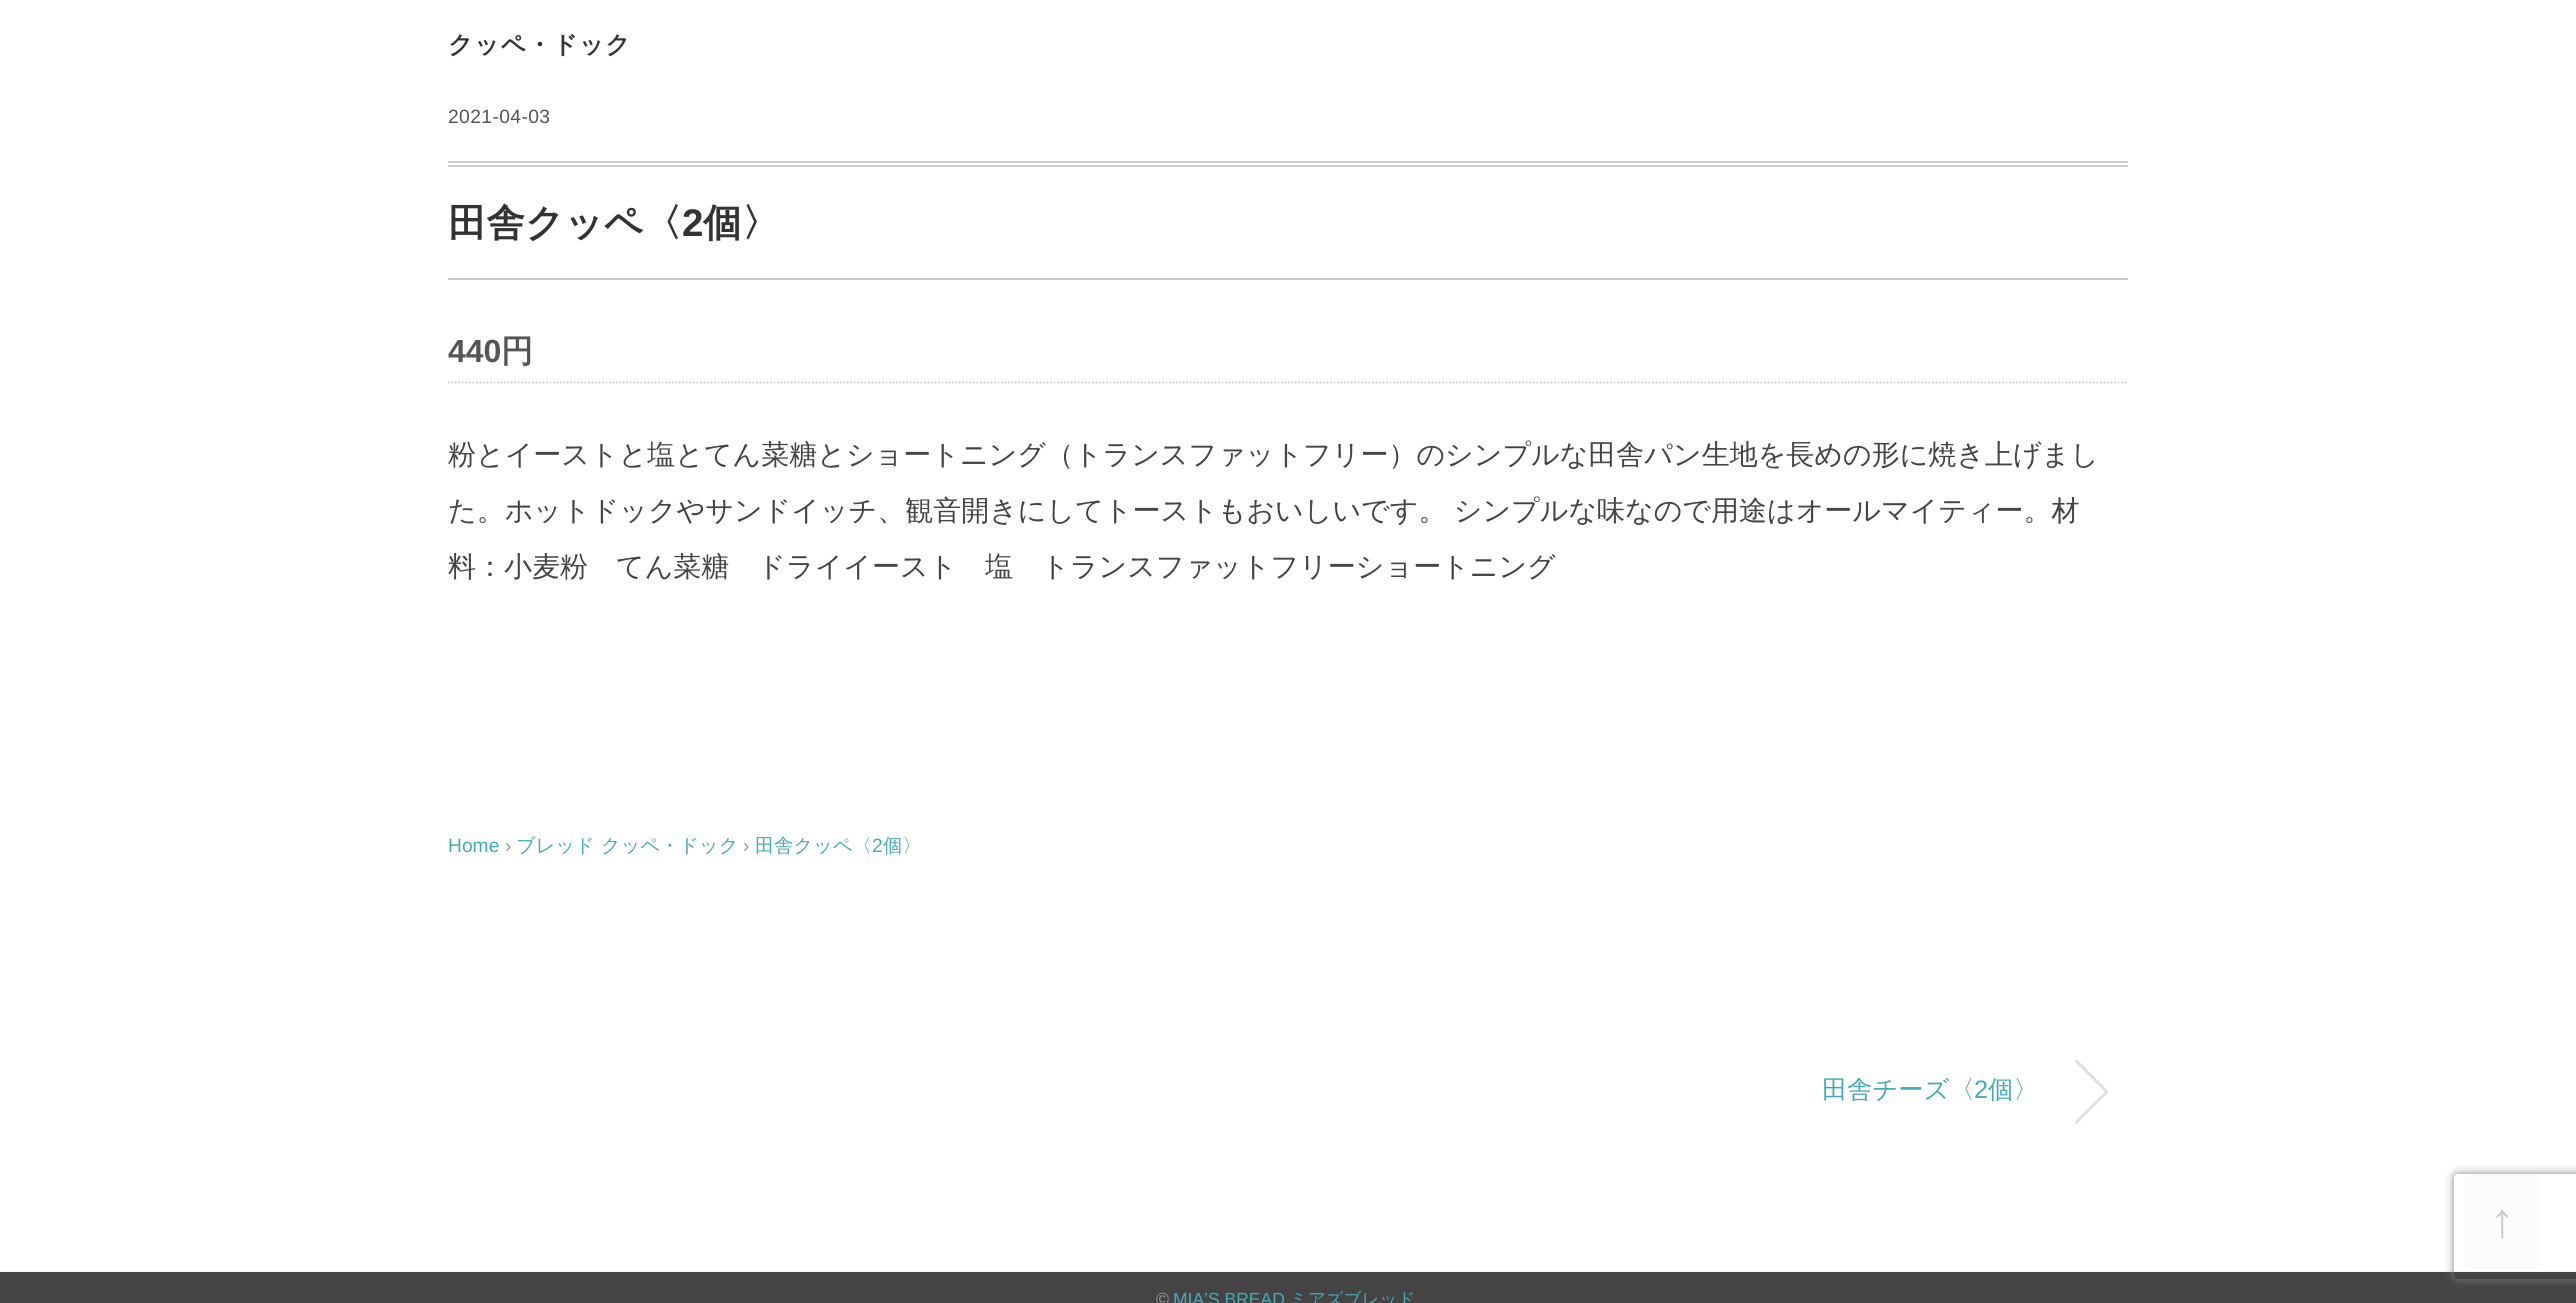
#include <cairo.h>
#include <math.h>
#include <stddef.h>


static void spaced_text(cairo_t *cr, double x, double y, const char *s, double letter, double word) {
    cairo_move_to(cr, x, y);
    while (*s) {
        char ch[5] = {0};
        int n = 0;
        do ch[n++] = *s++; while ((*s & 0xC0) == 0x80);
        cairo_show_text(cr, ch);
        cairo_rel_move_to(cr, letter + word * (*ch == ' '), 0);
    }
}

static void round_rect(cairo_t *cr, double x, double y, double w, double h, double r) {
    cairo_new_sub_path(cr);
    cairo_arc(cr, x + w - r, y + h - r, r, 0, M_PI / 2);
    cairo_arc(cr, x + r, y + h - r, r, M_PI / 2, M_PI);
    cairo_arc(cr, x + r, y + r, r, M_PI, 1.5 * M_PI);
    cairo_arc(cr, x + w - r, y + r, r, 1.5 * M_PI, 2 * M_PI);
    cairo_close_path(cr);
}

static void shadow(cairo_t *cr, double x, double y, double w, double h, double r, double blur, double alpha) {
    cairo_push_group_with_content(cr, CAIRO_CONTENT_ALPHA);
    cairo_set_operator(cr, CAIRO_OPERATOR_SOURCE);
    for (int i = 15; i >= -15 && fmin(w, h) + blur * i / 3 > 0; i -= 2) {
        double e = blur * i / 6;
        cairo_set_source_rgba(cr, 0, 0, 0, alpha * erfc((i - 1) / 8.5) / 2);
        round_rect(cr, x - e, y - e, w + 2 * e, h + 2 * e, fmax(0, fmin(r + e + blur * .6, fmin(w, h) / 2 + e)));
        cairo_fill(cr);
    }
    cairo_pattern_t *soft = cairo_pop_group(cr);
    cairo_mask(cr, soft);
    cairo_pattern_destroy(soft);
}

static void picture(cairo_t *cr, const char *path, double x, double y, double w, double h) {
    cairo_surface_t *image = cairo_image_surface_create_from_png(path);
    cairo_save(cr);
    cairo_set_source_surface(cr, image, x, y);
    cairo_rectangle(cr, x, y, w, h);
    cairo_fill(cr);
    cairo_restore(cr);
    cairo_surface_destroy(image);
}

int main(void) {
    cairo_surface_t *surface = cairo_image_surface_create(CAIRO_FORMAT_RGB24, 2576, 1303);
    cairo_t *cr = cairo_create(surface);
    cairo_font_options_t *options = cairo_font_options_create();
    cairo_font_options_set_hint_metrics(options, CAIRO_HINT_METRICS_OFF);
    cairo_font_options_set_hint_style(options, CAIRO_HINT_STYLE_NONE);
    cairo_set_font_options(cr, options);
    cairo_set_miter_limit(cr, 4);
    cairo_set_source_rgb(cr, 1, 1, 1);
    cairo_paint(cr);
    cairo_select_font_face(cr, "WenQuanYi Zen Hei", CAIRO_FONT_SLANT_NORMAL, CAIRO_FONT_WEIGHT_BOLD);
    cairo_set_font_size(cr, 24.5);
    cairo_set_source_rgb(cr, 0.2, 0.2, 0.2);
    spaced_text(cr, 448, 53, "クッペ・ドック", 1.25, 0);
    cairo_select_font_face(cr, "Liberation Sans", CAIRO_FONT_SLANT_NORMAL, CAIRO_FONT_WEIGHT_NORMAL);
    cairo_set_font_size(cr, 19.25);
    cairo_set_source_rgb(cr, 0.333, 0.333, 0.333);
    spaced_text(cr, 448, 123, "2021-04-03", 0.4, 0);
    cairo_set_source_rgb(cr, 0.8, 0.8, 0.8);
    cairo_rectangle(cr, 448, 161, 1680, 2);
    cairo_fill(cr);
    cairo_rectangle(cr, 448, 165, 1680, 2);
    cairo_fill(cr);
    cairo_rectangle(cr, 448, 278, 1680, 2);
    cairo_fill(cr);
    cairo_select_font_face(cr, "WenQuanYi Zen Hei", CAIRO_FONT_SLANT_NORMAL, CAIRO_FONT_WEIGHT_BOLD);
    cairo_set_font_size(cr, 38.5);
    cairo_set_source_rgb(cr, 0.2, 0.2, 0.2);
    cairo_move_to(cr, 448, 236);
    cairo_show_text(cr, "田舎クッペ〈");
    cairo_select_font_face(cr, "Liberation Sans", CAIRO_FONT_SLANT_NORMAL, CAIRO_FONT_WEIGHT_BOLD);
    cairo_move_to(cr, 682, 236);
    cairo_show_text(cr, "2");
    cairo_select_font_face(cr, "WenQuanYi Zen Hei", CAIRO_FONT_SLANT_NORMAL, CAIRO_FONT_WEIGHT_BOLD);
    cairo_move_to(cr, 703, 236);
    cairo_show_text(cr, "個〉");
    cairo_new_path(cr);
    cairo_move_to(cr, 448, 382.5);
    cairo_line_to(cr, 2128, 382.5);
    cairo_set_source_rgb(cr, 0.8, 0.8, 0.8);
    cairo_set_line_width(cr, 1.8);
    cairo_set_dash(cr, (double[]){1.75, 1.75}, 2, 0);
    cairo_stroke(cr);
    cairo_select_font_face(cr, "Liberation Sans", CAIRO_FONT_SLANT_NORMAL, CAIRO_FONT_WEIGHT_BOLD);
    cairo_set_font_size(cr, 32);
    cairo_set_source_rgb(cr, 0.333, 0.333, 0.333);
    cairo_move_to(cr, 448, 362);
    cairo_show_text(cr, "440");
    cairo_select_font_face(cr, "WenQuanYi Zen Hei", CAIRO_FONT_SLANT_NORMAL, CAIRO_FONT_WEIGHT_BOLD);
    cairo_move_to(cr, 501, 362);
    cairo_show_text(cr, "円");
    cairo_select_font_face(cr, "WenQuanYi Zen Hei Medium", CAIRO_FONT_SLANT_NORMAL, CAIRO_FONT_WEIGHT_NORMAL);
    cairo_set_font_size(cr, 28);
    cairo_set_source_rgb(cr, 0.267, 0.267, 0.267);
    cairo_move_to(cr, 448, 464);
    cairo_show_text(cr, "粉とイーストと塩とてん菜糖とショートニング（トランスファットフリー）のシンプルな田舎パン生地を長めの形に焼き上げまし");
    spaced_text(cr, 448, 520, "た。ホットドックやサンドイッチ、観音開きにしてトーストもおいしいです。 シンプルな味なので用途はオールマイティー。材", 0, -1);
    cairo_move_to(cr, 448, 576);
    cairo_show_text(cr, "料：小麦粉　てん菜糖　ドライイースト　塩　トランスファットフリーショートニング");
    cairo_select_font_face(cr, "Liberation Sans", CAIRO_FONT_SLANT_NORMAL, CAIRO_FONT_WEIGHT_NORMAL);
    cairo_set_font_size(cr, 19.25);
    cairo_set_source_rgb(cr, 0.271, 0.667, 0.722);
    cairo_move_to(cr, 448, 852);
    cairo_show_text(cr, "Home");
    cairo_set_source_rgb(cr, 0.6, 0.6, 0.6);
    cairo_move_to(cr, 505, 852);
    cairo_show_text(cr, "›");
    cairo_select_font_face(cr, "WenQuanYi Zen Hei Medium", CAIRO_FONT_SLANT_NORMAL, CAIRO_FONT_WEIGHT_NORMAL);
    cairo_set_source_rgb(cr, 0.271, 0.667, 0.722);
    cairo_move_to(cr, 516, 852);
    cairo_show_text(cr, "ブレッド");
    cairo_move_to(cr, 601, 852);
    cairo_show_text(cr, "クッペ・ドック");
    cairo_select_font_face(cr, "Liberation Sans", CAIRO_FONT_SLANT_NORMAL, CAIRO_FONT_WEIGHT_NORMAL);
    cairo_set_source_rgb(cr, 0.6, 0.6, 0.6);
    cairo_move_to(cr, 743, 852);
    cairo_show_text(cr, "›");
    cairo_select_font_face(cr, "WenQuanYi Zen Hei Medium", CAIRO_FONT_SLANT_NORMAL, CAIRO_FONT_WEIGHT_NORMAL);
    cairo_set_source_rgb(cr, 0.271, 0.667, 0.722);
    cairo_move_to(cr, 755, 852);
    cairo_show_text(cr, "田舎クッペ〈");
    cairo_select_font_face(cr, "Liberation Sans", CAIRO_FONT_SLANT_NORMAL, CAIRO_FONT_WEIGHT_NORMAL);
    cairo_move_to(cr, 872, 852);
    cairo_show_text(cr, "2");
    cairo_select_font_face(cr, "WenQuanYi Zen Hei Medium", CAIRO_FONT_SLANT_NORMAL, CAIRO_FONT_WEIGHT_NORMAL);
    cairo_move_to(cr, 883, 852);
    cairo_show_text(cr, "個〉");
    picture(cr, "img1.png", 2074, 1059, 35, 66);
    cairo_set_font_size(cr, 25.25);
    cairo_move_to(cr, 1822, 1098);
    cairo_show_text(cr, "田舎チーズ〈");
    cairo_select_font_face(cr, "Liberation Sans", CAIRO_FONT_SLANT_NORMAL, CAIRO_FONT_WEIGHT_NORMAL);
    cairo_move_to(cr, 1974, 1098);
    cairo_show_text(cr, "2");
    cairo_select_font_face(cr, "WenQuanYi Zen Hei Medium", CAIRO_FONT_SLANT_NORMAL, CAIRO_FONT_WEIGHT_NORMAL);
    cairo_move_to(cr, 1988, 1098);
    cairo_show_text(cr, "個〉");
    cairo_set_source_rgb(cr, 0.988, 0.988, 0.988);
    round_rect(cr, 2464, 1174, 77, 95, 4);
    cairo_fill(cr);
    cairo_set_source_rgb(cr, 0.961, 0.961, 0.961);
    cairo_rectangle(cr, 0, 1271, 2576, 1);
    cairo_fill(cr);
    cairo_set_source_rgb(cr, 0.267, 0.267, 0.267);
    cairo_rectangle(cr, 0, 1272, 2576, 31);
    cairo_fill(cr);
    cairo_save(cr);
    cairo_set_fill_rule(cr, CAIRO_FILL_RULE_EVEN_ODD);
    cairo_new_path(cr);
    cairo_move_to(cr, 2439, 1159);
    cairo_line_to(cr, 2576, 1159);
    cairo_line_to(cr, 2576, 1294);
    cairo_line_to(cr, 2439, 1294);
    cairo_close_path(cr);
    cairo_move_to(cr, 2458, 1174);
    cairo_line_to(cr, 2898, 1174);
    cairo_curve_to(cr, 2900, 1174, 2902, 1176, 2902, 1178);
    cairo_line_to(cr, 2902, 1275);
    cairo_curve_to(cr, 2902, 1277, 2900, 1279, 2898, 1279);
    cairo_line_to(cr, 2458, 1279);
    cairo_curve_to(cr, 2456, 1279, 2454, 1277, 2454, 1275);
    cairo_line_to(cr, 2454, 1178);
    cairo_curve_to(cr, 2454, 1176, 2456, 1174, 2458, 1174);
    cairo_close_path(cr);
    cairo_clip(cr);
    cairo_set_source_rgb(cr, 0.502, 0.502, 0.502);
    shadow(cr, 2454, 1174, 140, 105, 4, 4.5, 1);
    cairo_restore(cr);
    cairo_select_font_face(cr, "Liberation Sans", CAIRO_FONT_SLANT_NORMAL, CAIRO_FONT_WEIGHT_NORMAL);
    cairo_set_font_size(cr, 49);
    cairo_set_source_rgb(cr, 0.8, 0.8, 0.8);
    cairo_move_to(cr, 2490, 1237);
    cairo_show_text(cr, "↑");
    cairo_set_font_size(cr, 17.5);
    cairo_set_source_rgb(cr, 0.6, 0.6, 0.6);
    cairo_move_to(cr, 1156, 1305);
    cairo_show_text(cr, "©");
    cairo_set_source_rgb(cr, 0.271, 0.667, 0.722);
    cairo_move_to(cr, 1173, 1305);
    cairo_show_text(cr, "MIA’S BREAD");
    cairo_select_font_face(cr, "WenQuanYi Zen Hei Medium", CAIRO_FONT_SLANT_NORMAL, CAIRO_FONT_WEIGHT_NORMAL);
    cairo_move_to(cr, 1290, 1305);
    cairo_show_text(cr, "ミアズブレッド");
    cairo_surface_write_to_png(surface, "page.png");
    cairo_font_options_destroy(options);
    cairo_destroy(cr);
    cairo_surface_destroy(surface);
    return 0;
}
